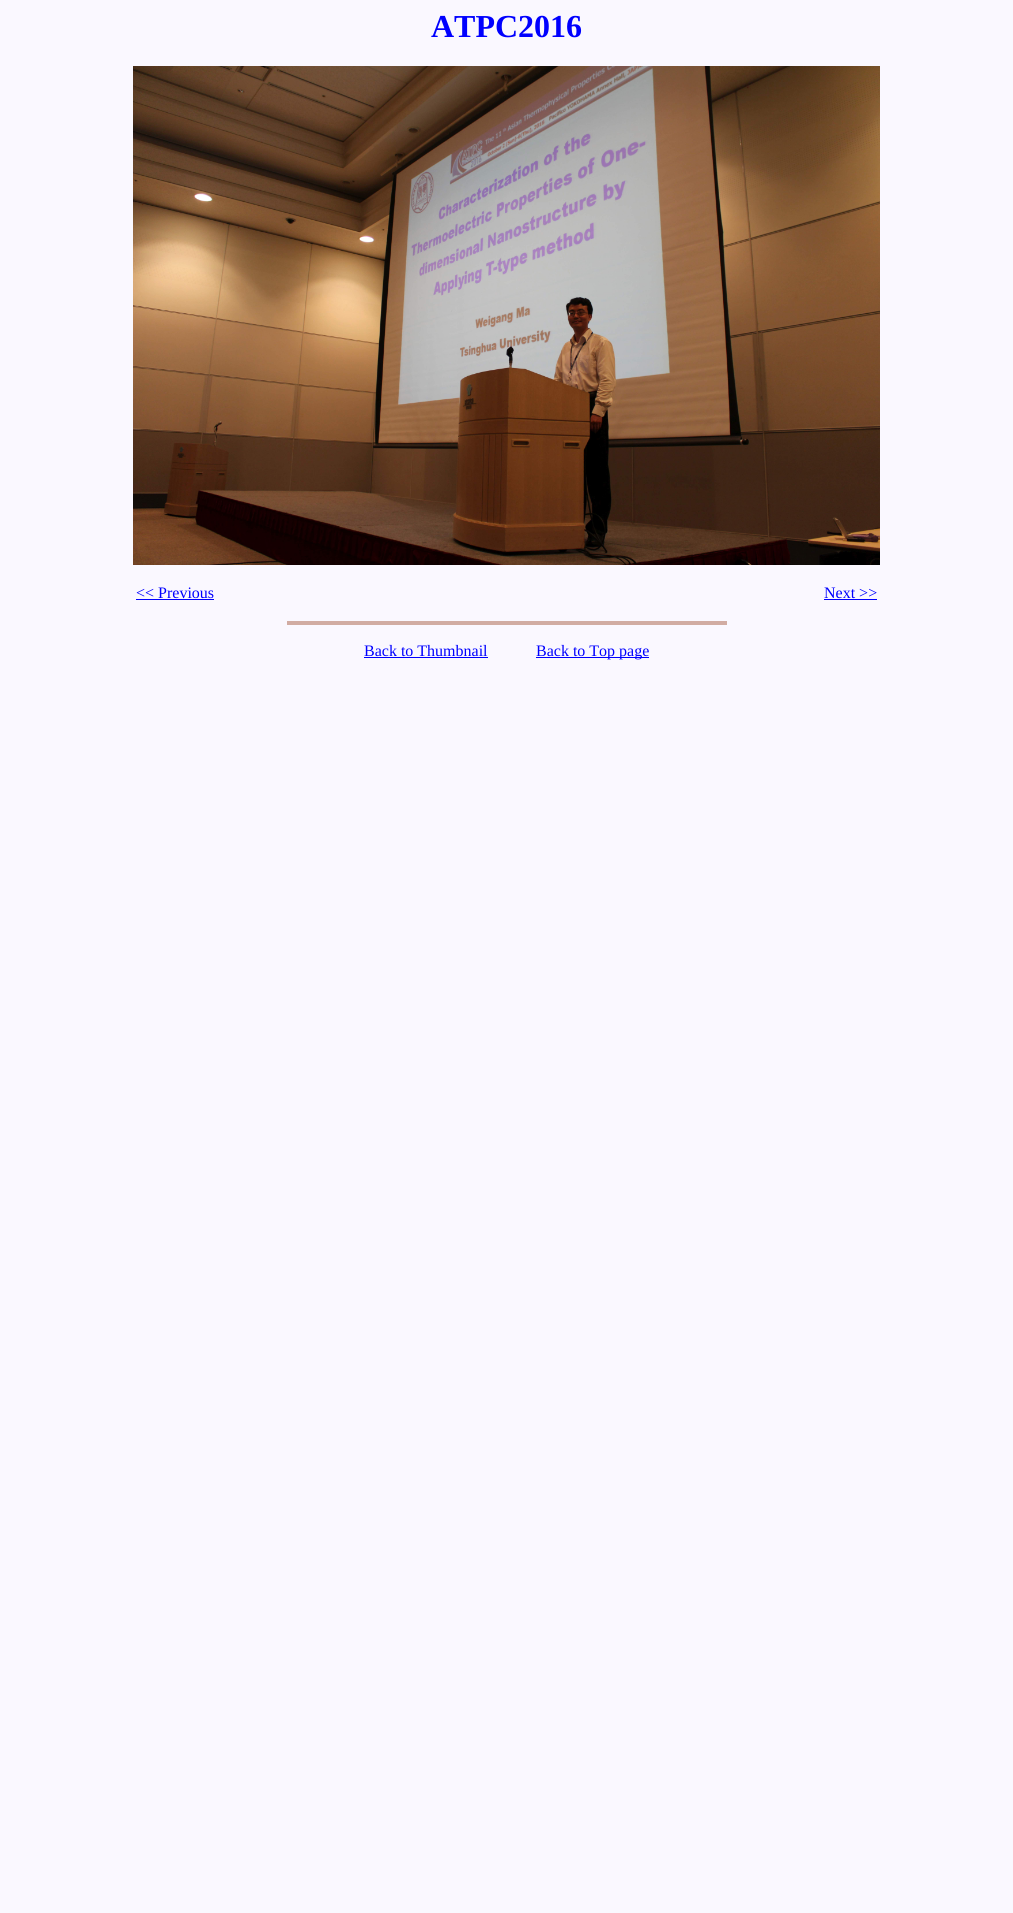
#include <cairo.h>
#include <math.h>
#include <stddef.h>


static void picture(cairo_t *cr, const char *path, double x, double y, double w, double h) {
    cairo_surface_t *image = cairo_image_surface_create_from_png(path);
    cairo_save(cr);
    cairo_set_source_surface(cr, image, x, y);
    cairo_rectangle(cr, x, y, w, h);
    cairo_fill(cr);
    cairo_restore(cr);
    cairo_surface_destroy(image);
}

int main(void) {
    cairo_surface_t *surface = cairo_image_surface_create(CAIRO_FORMAT_RGB24, 1013, 1913);
    cairo_t *cr = cairo_create(surface);
    cairo_font_options_t *options = cairo_font_options_create();
    cairo_font_options_set_hint_metrics(options, CAIRO_HINT_METRICS_OFF);
    cairo_font_options_set_hint_style(options, CAIRO_HINT_STYLE_NONE);
    cairo_set_font_options(cr, options);
    cairo_set_miter_limit(cr, 4);
    cairo_set_source_rgb(cr, 0.98, 0.969, 1);
    cairo_paint(cr);
    cairo_select_font_face(cr, "Liberation Serif", CAIRO_FONT_SLANT_NORMAL, CAIRO_FONT_WEIGHT_BOLD);
    cairo_set_font_size(cr, 32);
    cairo_set_source_rgb(cr, 0, 0, 1);
    cairo_move_to(cr, 431, 37);
    cairo_show_text(cr, "ATPC2016");
    picture(cr, "img1.png", 133, 66, 747, 499);
    cairo_select_font_face(cr, "Liberation Serif", CAIRO_FONT_SLANT_NORMAL, CAIRO_FONT_WEIGHT_NORMAL);
    cairo_set_font_size(cr, 16);
    cairo_move_to(cr, 136, 598);
    cairo_show_text(cr, "<< Previous");
    cairo_rectangle(cr, 136, 599, 78, 1);
    cairo_fill(cr);
    cairo_move_to(cr, 824, 598);
    cairo_show_text(cr, "Next >>");
    cairo_rectangle(cr, 824, 599, 53, 1);
    cairo_fill(cr);
    cairo_set_source_rgb(cr, 0.82, 0.675, 0.639);
    cairo_rectangle(cr, 287, 621, 440, 4);
    cairo_fill(cr);
    cairo_set_source_rgb(cr, 0, 0, 1);
    cairo_move_to(cr, 364, 656);
    cairo_show_text(cr, "Back to Thumbnail");
    cairo_rectangle(cr, 364, 657, 124, 1);
    cairo_fill(cr);
    cairo_rectangle(cr, 536, 657, 113, 1);
    cairo_fill(cr);
    cairo_move_to(cr, 536, 656);
    cairo_show_text(cr, "Back to Top page");
    cairo_surface_write_to_png(surface, "page.png");
    cairo_font_options_destroy(options);
    cairo_destroy(cr);
    cairo_surface_destroy(surface);
    return 0;
}
